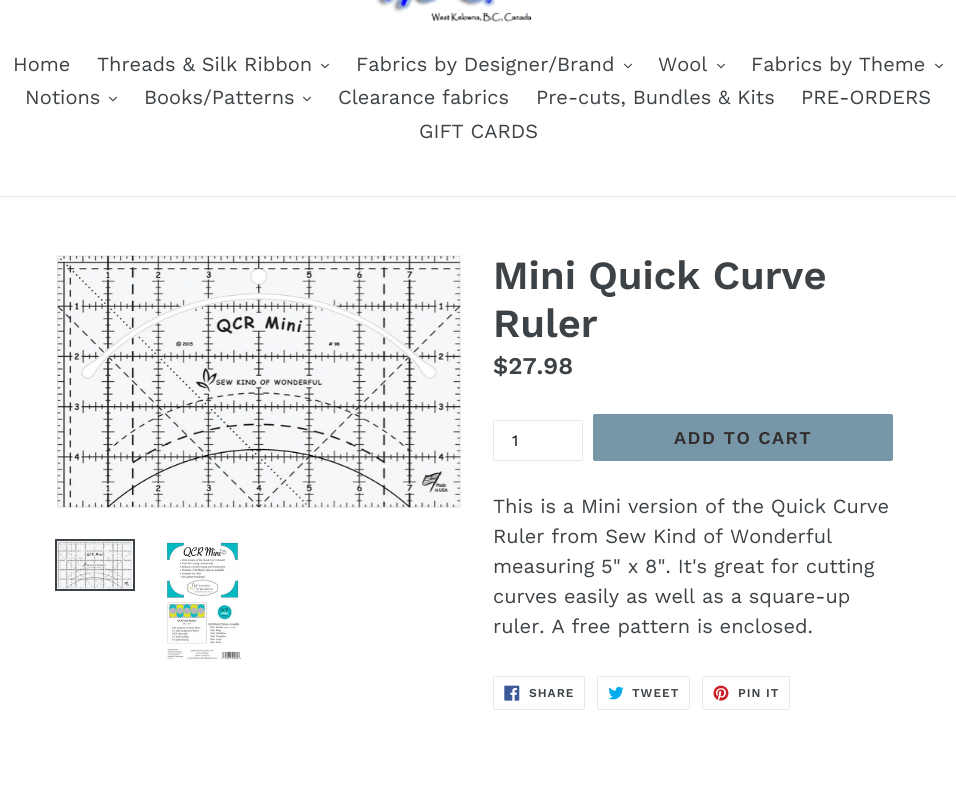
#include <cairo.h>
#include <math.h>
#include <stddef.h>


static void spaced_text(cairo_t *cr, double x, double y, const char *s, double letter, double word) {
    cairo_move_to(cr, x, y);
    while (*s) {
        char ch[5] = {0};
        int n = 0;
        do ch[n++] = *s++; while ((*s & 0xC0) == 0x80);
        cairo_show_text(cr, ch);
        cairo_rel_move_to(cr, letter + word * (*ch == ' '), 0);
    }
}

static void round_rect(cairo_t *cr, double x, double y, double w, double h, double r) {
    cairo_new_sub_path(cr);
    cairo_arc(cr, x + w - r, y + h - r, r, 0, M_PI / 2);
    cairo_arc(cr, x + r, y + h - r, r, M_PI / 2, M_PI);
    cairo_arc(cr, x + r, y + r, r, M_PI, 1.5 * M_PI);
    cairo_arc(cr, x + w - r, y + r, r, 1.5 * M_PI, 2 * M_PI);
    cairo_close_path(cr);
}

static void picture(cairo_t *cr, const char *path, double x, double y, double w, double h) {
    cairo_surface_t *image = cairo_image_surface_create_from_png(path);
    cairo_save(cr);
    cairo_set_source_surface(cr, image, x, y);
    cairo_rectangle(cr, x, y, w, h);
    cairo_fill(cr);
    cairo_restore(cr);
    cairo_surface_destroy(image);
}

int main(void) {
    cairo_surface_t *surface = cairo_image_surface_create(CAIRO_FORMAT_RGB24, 956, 806);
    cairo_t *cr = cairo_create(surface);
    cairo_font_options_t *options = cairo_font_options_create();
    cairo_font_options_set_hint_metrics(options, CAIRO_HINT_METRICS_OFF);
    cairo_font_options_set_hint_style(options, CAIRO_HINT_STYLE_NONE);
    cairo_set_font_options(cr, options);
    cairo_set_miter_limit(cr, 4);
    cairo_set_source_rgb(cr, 1, 1, 1);
    cairo_paint(cr);
    picture(cr, "img1.png", 376, 0, 156, 22);
    cairo_set_source_rgb(cr, 0.91, 0.914, 0.922);
    cairo_rectangle(cr, 0, 196, 956, 1);
    cairo_fill(cr);
    cairo_select_font_face(cr, "Work Sans", CAIRO_FONT_SLANT_NORMAL, CAIRO_FONT_WEIGHT_NORMAL);
    cairo_set_font_size(cr, 20);
    cairo_set_source_rgb(cr, 0.239, 0.259, 0.275);
    cairo_move_to(cr, 13, 71);
    cairo_show_text(cr, "Home");
    cairo_move_to(cr, 97, 71);
    cairo_show_text(cr, "Threads & Silk Ribbon");
    picture(cr, "img2.png", 321, 63, 8, 6);
    cairo_move_to(cr, 356, 71);
    cairo_show_text(cr, "Fabrics by Designer/Brand");
    picture(cr, "img2.png", 624, 63, 8, 6);
    cairo_move_to(cr, 658, 71);
    cairo_show_text(cr, "Wool");
    picture(cr, "img2.png", 717, 63, 8, 6);
    cairo_move_to(cr, 751, 71);
    cairo_show_text(cr, "Fabrics by Theme");
    picture(cr, "img2.png", 935, 63, 8, 6);
    cairo_move_to(cr, 25, 104);
    cairo_show_text(cr, "Notions");
    picture(cr, "img2.png", 109, 96, 8, 6);
    cairo_move_to(cr, 144, 104);
    cairo_show_text(cr, "Books/Patterns");
    picture(cr, "img2.png", 303, 96, 8, 6);
    cairo_move_to(cr, 338, 104);
    cairo_show_text(cr, "Clearance fabrics");
    cairo_move_to(cr, 536, 104);
    cairo_show_text(cr, "Pre-cuts, Bundles & Kits");
    cairo_move_to(cr, 801, 104);
    cairo_show_text(cr, "PRE-ORDERS");
    cairo_move_to(cr, 419, 138);
    cairo_show_text(cr, "GIFT CARDS");
    picture(cr, "img3.png", 55, 255, 407, 254);
    cairo_rectangle(cr, 56, 540, 78, 50);
    cairo_stroke(cr);
    picture(cr, "img4.png", 57, 541, 75, 48);
    picture(cr, "img5.png", 167, 541, 74, 119);
    cairo_select_font_face(cr, "Work Sans SemiBold", CAIRO_FONT_SLANT_NORMAL, CAIRO_FONT_WEIGHT_NORMAL);
    cairo_set_font_size(cr, 40);
    cairo_move_to(cr, 493, 289);
    cairo_show_text(cr, "Mini Quick Curve");
    cairo_move_to(cr, 493, 337);
    cairo_show_text(cr, "Ruler");
    cairo_set_font_size(cr, 24);
    cairo_move_to(cr, 493, 374);
    cairo_show_text(cr, "$27.98");
    round_rect(cr, 493.5, 420.5, 89, 40, 1.5);
    cairo_set_source_rgb(cr, 0.91, 0.914, 0.922);
    cairo_set_line_width(cr, 1);
    cairo_stroke(cr);
    cairo_select_font_face(cr, "Work Sans", CAIRO_FONT_SLANT_NORMAL, CAIRO_FONT_WEIGHT_NORMAL);
    cairo_set_font_size(cr, 16);
    cairo_set_source_rgb(cr, 0, 0, 0);
    cairo_move_to(cr, 512, 446);
    cairo_show_text(cr, "1");
    cairo_set_source_rgb(cr, 0.467, 0.588, 0.659);
    round_rect(cr, 593, 414, 300, 47, 2);
    cairo_fill(cr);
    cairo_select_font_face(cr, "Work Sans SemiBold", CAIRO_FONT_SLANT_NORMAL, CAIRO_FONT_WEIGHT_NORMAL);
    cairo_set_font_size(cr, 18);
    cairo_set_source_rgb(cr, 0.2, 0.18, 0.18);
    spaced_text(cr, 674, 444, "ADD TO CART", 1.5, 0);
    cairo_select_font_face(cr, "Work Sans", CAIRO_FONT_SLANT_NORMAL, CAIRO_FONT_WEIGHT_NORMAL);
    cairo_set_font_size(cr, 20);
    cairo_set_source_rgb(cr, 0.239, 0.259, 0.275);
    cairo_move_to(cr, 493, 513);
    cairo_show_text(cr, "This is a Mini version of the Quick Curve");
    cairo_move_to(cr, 493, 543);
    cairo_show_text(cr, "Ruler from Sew Kind of Wonderful");
    cairo_move_to(cr, 493, 573);
    cairo_show_text(cr, "measuring 5\" x 8\". It's great for cutting");
    cairo_move_to(cr, 493, 603);
    cairo_show_text(cr, "curves easily as well as a square-up");
    cairo_move_to(cr, 493, 633);
    cairo_show_text(cr, "ruler. A free pattern is enclosed.");
    round_rect(cr, 493.5, 676.5, 91, 33, 1.5);
    cairo_set_source_rgb(cr, 0.91, 0.914, 0.922);
    cairo_stroke(cr);
    picture(cr, "img6.png", 504, 685, 16, 16);
    cairo_select_font_face(cr, "Work Sans SemiBold", CAIRO_FONT_SLANT_NORMAL, CAIRO_FONT_WEIGHT_NORMAL);
    cairo_set_font_size(cr, 12);
    cairo_set_source_rgb(cr, 0.239, 0.259, 0.275);
    spaced_text(cr, 529, 697, "SHARE", 1, 0);
    round_rect(cr, 597.5, 676.5, 92, 33, 1.5);
    cairo_set_source_rgb(cr, 0.91, 0.914, 0.922);
    cairo_stroke(cr);
    picture(cr, "img7.png", 608, 686, 16, 14);
    cairo_set_source_rgb(cr, 0.239, 0.259, 0.275);
    spaced_text(cr, 632, 697, "TWEET", 1, 0);
    round_rect(cr, 702.5, 676.5, 87, 33, 1.5);
    cairo_set_source_rgb(cr, 0.91, 0.914, 0.922);
    cairo_stroke(cr);
    picture(cr, "img8.png", 713, 685, 16, 16);
    cairo_set_source_rgb(cr, 0.239, 0.259, 0.275);
    spaced_text(cr, 738, 697, "PIN IT", 1, 0);
    cairo_surface_write_to_png(surface, "page.png");
    cairo_font_options_destroy(options);
    cairo_destroy(cr);
    cairo_surface_destroy(surface);
    return 0;
}
